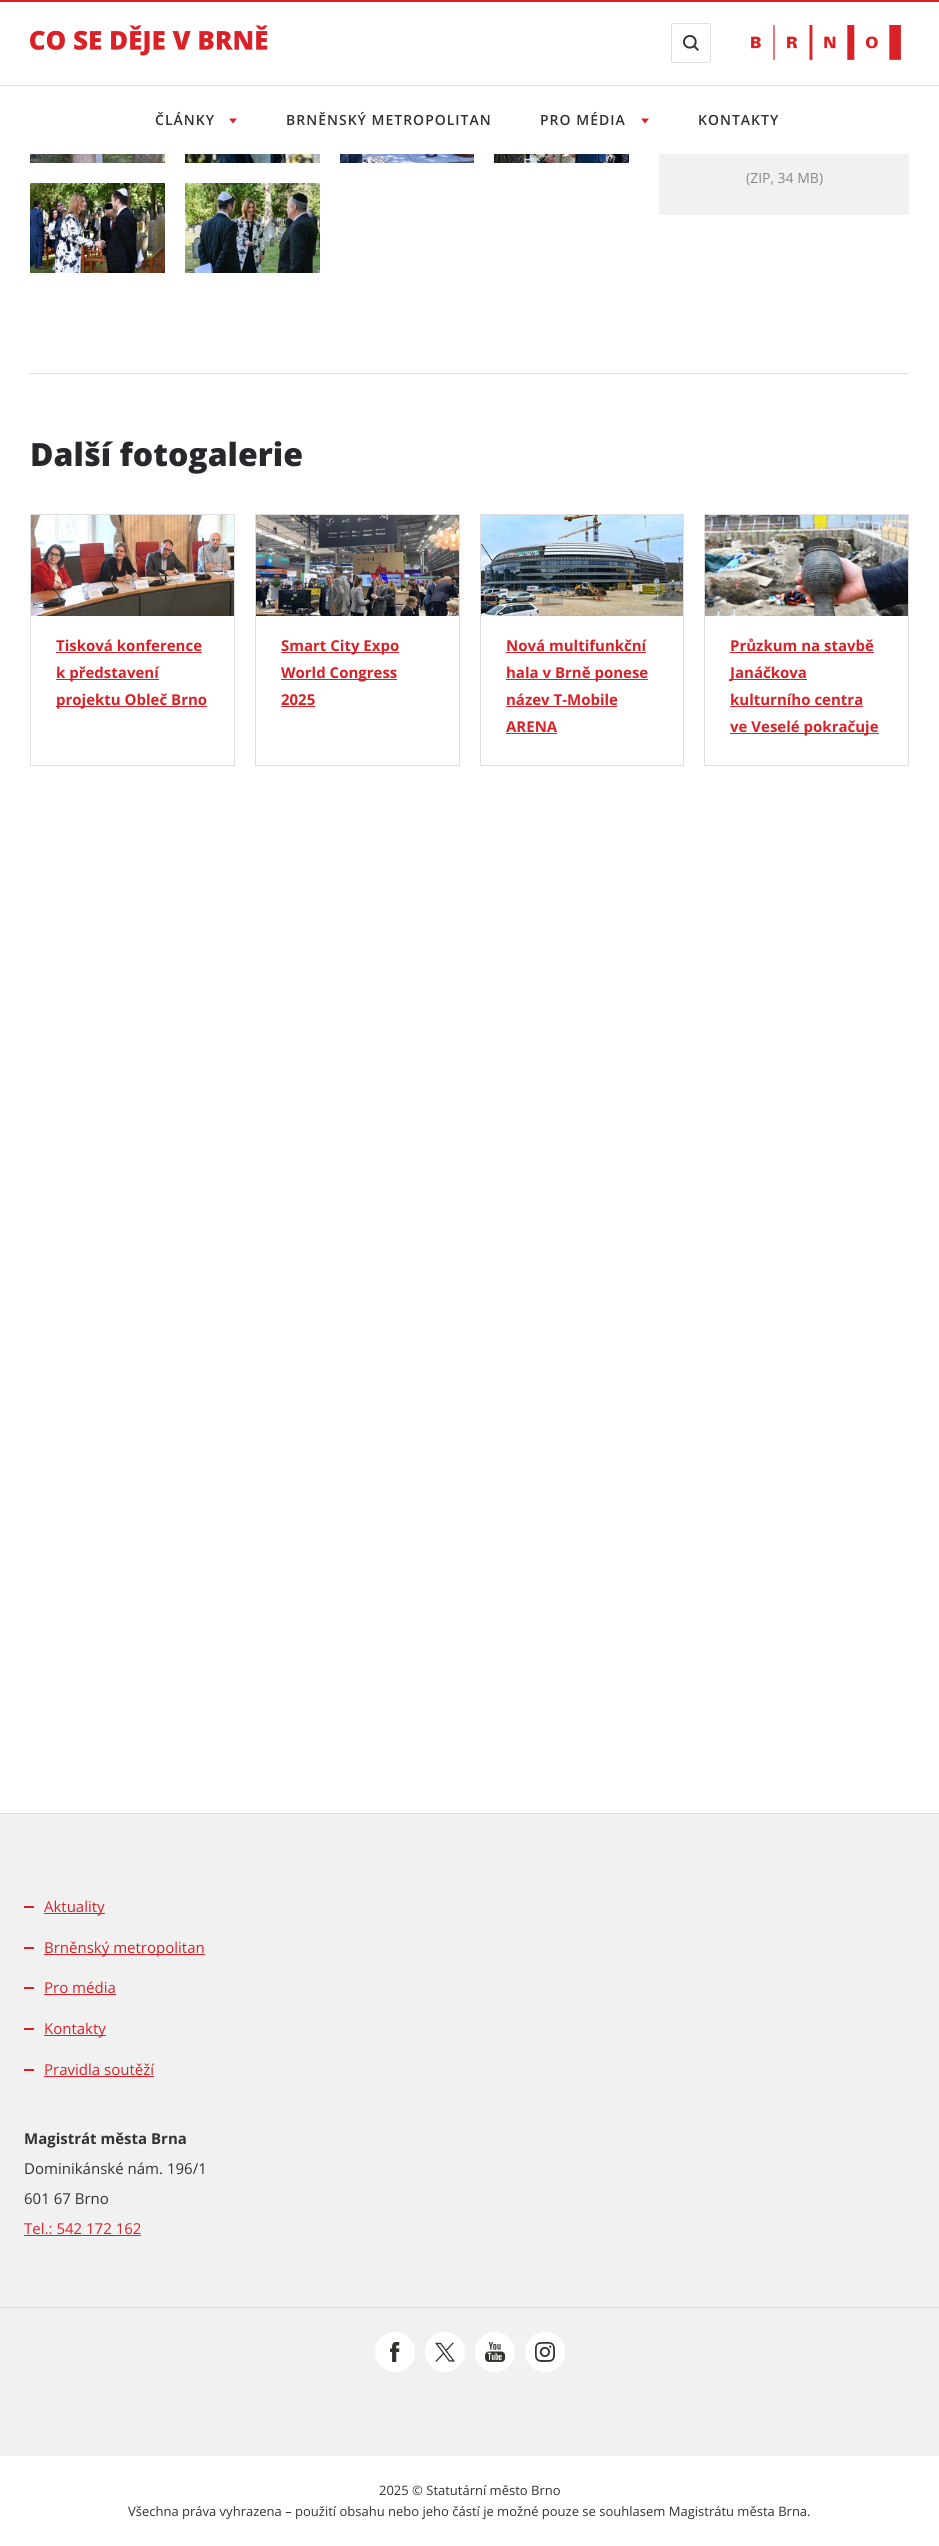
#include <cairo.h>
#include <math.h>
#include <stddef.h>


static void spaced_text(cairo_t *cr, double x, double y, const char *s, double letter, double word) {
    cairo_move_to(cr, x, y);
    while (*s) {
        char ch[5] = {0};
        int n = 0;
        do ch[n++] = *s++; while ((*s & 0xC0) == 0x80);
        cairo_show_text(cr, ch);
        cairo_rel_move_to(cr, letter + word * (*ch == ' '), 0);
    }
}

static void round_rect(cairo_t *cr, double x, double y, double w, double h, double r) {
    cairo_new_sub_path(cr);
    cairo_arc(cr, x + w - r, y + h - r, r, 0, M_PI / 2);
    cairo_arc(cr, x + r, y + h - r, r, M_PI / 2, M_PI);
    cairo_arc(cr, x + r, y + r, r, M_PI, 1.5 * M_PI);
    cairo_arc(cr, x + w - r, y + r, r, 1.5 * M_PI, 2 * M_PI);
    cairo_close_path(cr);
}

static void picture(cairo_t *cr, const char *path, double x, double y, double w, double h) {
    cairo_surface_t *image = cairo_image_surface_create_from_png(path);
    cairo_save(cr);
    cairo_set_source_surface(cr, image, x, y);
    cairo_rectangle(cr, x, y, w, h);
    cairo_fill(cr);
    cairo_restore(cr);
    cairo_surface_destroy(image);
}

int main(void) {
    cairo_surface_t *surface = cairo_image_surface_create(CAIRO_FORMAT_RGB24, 939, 2546);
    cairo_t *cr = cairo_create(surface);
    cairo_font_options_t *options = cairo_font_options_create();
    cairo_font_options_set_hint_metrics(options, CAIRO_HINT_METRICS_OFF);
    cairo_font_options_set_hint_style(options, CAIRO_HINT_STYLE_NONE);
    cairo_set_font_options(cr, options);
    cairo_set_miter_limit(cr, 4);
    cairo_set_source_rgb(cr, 1, 1, 1);
    cairo_paint(cr);
    cairo_set_source_rgb(cr, 0.855, 0.129, 0.157);
    cairo_rectangle(cr, 0, 0, 939, 2);
    cairo_fill(cr);
    cairo_set_source_rgb(cr, 0.878, 0.871, 0.871);
    cairo_rectangle(cr, 0, 85, 939, 1);
    cairo_fill(cr);
    picture(cr, "img1.png", 30, 25, 238, 31);
    round_rect(cr, 671.5, 23.5, 39, 39, 1.5);
    cairo_set_line_width(cr, 1);
    cairo_stroke(cr);
    picture(cr, "img2.png", 683, 35, 16, 16);
    picture(cr, "img3.png", 751, 25, 150, 35);
    cairo_select_font_face(cr, "Open Sans SemiBold", CAIRO_FONT_SLANT_NORMAL, CAIRO_FONT_WEIGHT_NORMAL);
    cairo_set_font_size(cr, 14);
    cairo_set_source_rgb(cr, 0.204, 0.196, 0.184);
    spaced_text(cr, 155, 125, "ČLÁNKY", 1, 0);
    cairo_set_source_rgb(cr, 0.855, 0.129, 0.157);
    cairo_new_path(cr);
    cairo_move_to(cr, 233, 123.5);
    cairo_line_to(cr, 237, 118.5);
    cairo_line_to(cr, 229, 118.5);
    cairo_close_path(cr);
    cairo_fill(cr);
    cairo_set_source_rgb(cr, 0.204, 0.196, 0.184);
    spaced_text(cr, 286, 125, "BRNĚNSKÝ METROPOLITAN", 1, 0);
    spaced_text(cr, 540, 125, "PRO MÉDIA", 1, 0);
    cairo_set_source_rgb(cr, 0.855, 0.129, 0.157);
    cairo_new_path(cr);
    cairo_move_to(cr, 645, 123.5);
    cairo_line_to(cr, 649, 118.5);
    cairo_line_to(cr, 641, 118.5);
    cairo_close_path(cr);
    cairo_fill(cr);
    cairo_set_source_rgb(cr, 0.204, 0.196, 0.184);
    spaced_text(cr, 698, 125, "KONTAKTY", 1, 0);
    picture(cr, "img4.png", 30, 154, 135, 9);
    picture(cr, "img5.png", 185, 154, 135, 9);
    picture(cr, "img6.png", 340, 154, 134, 9);
    picture(cr, "img7.png", 494, 154, 135, 9);
    picture(cr, "img8.png", 30, 183, 135, 90);
    picture(cr, "img9.png", 185, 183, 135, 90);
    cairo_set_source_rgb(cr, 0.945, 0.945, 0.945);
    cairo_rectangle(cr, 659, 154, 250, 61);
    cairo_fill(cr);
    cairo_select_font_face(cr, "Open Sans", CAIRO_FONT_SLANT_NORMAL, CAIRO_FONT_WEIGHT_NORMAL);
    cairo_set_source_rgb(cr, 0.529, 0.529, 0.529);
    cairo_move_to(cr, 746, 183);
    cairo_show_text(cr, "(ZIP, 34 MB)");
    cairo_set_source_rgb(cr, 0.878, 0.871, 0.871);
    cairo_rectangle(cr, 30, 373, 879, 1);
    cairo_fill(cr);
    cairo_select_font_face(cr, "Open Sans ExtraBold", CAIRO_FONT_SLANT_NORMAL, CAIRO_FONT_WEIGHT_NORMAL);
    cairo_set_font_size(cr, 32);
    cairo_set_source_rgb(cr, 0.153, 0.157, 0.173);
    cairo_move_to(cr, 30, 466);
    cairo_show_text(cr, "Další fotogalerie");
    cairo_rectangle(cr, 30.5, 514.5, 204, 251);
    cairo_set_source_rgb(cr, 0.878, 0.871, 0.871);
    cairo_stroke(cr);
    picture(cr, "img10.png", 31, 515, 203, 101);
    cairo_select_font_face(cr, "Open Sans", CAIRO_FONT_SLANT_NORMAL, CAIRO_FONT_WEIGHT_BOLD);
    cairo_set_font_size(cr, 15);
    cairo_set_source_rgb(cr, 0.855, 0.129, 0.157);
    cairo_move_to(cr, 56, 651);
    cairo_show_text(cr, "Tisková konference");
    cairo_rectangle(cr, 56, 652, 146, 1);
    cairo_fill(cr);
    cairo_rectangle(cr, 56, 679, 103, 1);
    cairo_fill(cr);
    cairo_move_to(cr, 56, 678);
    cairo_show_text(cr, "k představení");
    cairo_rectangle(cr, 56, 706, 151, 1);
    cairo_fill(cr);
    cairo_move_to(cr, 56, 705);
    cairo_show_text(cr, "projektu Obleč Brno");
    cairo_rectangle(cr, 255.5, 514.5, 204, 251);
    cairo_set_source_rgb(cr, 0.878, 0.871, 0.871);
    cairo_stroke(cr);
    picture(cr, "img11.png", 256, 515, 203, 101);
    cairo_set_source_rgb(cr, 0.855, 0.129, 0.157);
    cairo_rectangle(cr, 281, 652, 118, 1);
    cairo_fill(cr);
    cairo_move_to(cr, 281, 651);
    cairo_show_text(cr, "Smart City Expo");
    cairo_rectangle(cr, 281, 679, 116, 1);
    cairo_fill(cr);
    cairo_move_to(cr, 281, 678);
    cairo_show_text(cr, "World Congress");
    cairo_move_to(cr, 281, 705);
    cairo_show_text(cr, "2025");
    cairo_rectangle(cr, 281, 706, 34, 1);
    cairo_fill(cr);
    cairo_rectangle(cr, 480.5, 514.5, 203, 251);
    cairo_set_source_rgb(cr, 0.878, 0.871, 0.871);
    cairo_stroke(cr);
    picture(cr, "img12.png", 481, 515, 202, 101);
    cairo_set_source_rgb(cr, 0.855, 0.129, 0.157);
    cairo_move_to(cr, 506, 651);
    cairo_show_text(cr, "Nová multifunkční");
    cairo_rectangle(cr, 506, 652, 140, 1);
    cairo_fill(cr);
    cairo_rectangle(cr, 506, 679, 142, 1);
    cairo_fill(cr);
    cairo_move_to(cr, 506, 678);
    cairo_show_text(cr, "hala v Brně ponese");
    cairo_move_to(cr, 506, 705);
    cairo_show_text(cr, "název T-Mobile");
    cairo_rectangle(cr, 506, 706, 111, 1);
    cairo_fill(cr);
    cairo_move_to(cr, 506, 732);
    cairo_show_text(cr, "ARENA");
    cairo_rectangle(cr, 506, 733, 51, 1);
    cairo_fill(cr);
    cairo_rectangle(cr, 704.5, 514.5, 204, 251);
    cairo_set_source_rgb(cr, 0.878, 0.871, 0.871);
    cairo_stroke(cr);
    picture(cr, "img13.png", 705, 515, 203, 101);
    cairo_set_source_rgb(cr, 0.855, 0.129, 0.157);
    cairo_move_to(cr, 730, 651);
    cairo_show_text(cr, "Průzkum na stavbě");
    cairo_rectangle(cr, 730, 652, 144, 1);
    cairo_fill(cr);
    cairo_rectangle(cr, 730, 679, 77, 1);
    cairo_fill(cr);
    cairo_move_to(cr, 730, 678);
    cairo_show_text(cr, "Janáčkova");
    cairo_move_to(cr, 730, 705);
    cairo_show_text(cr, "kulturního centra");
    cairo_rectangle(cr, 730, 706, 133, 1);
    cairo_fill(cr);
    cairo_rectangle(cr, 730, 733, 149, 1);
    cairo_fill(cr);
    cairo_move_to(cr, 730, 732);
    cairo_show_text(cr, "ve Veselé pokračuje");
    cairo_set_source_rgb(cr, 0.945, 0.945, 0.945);
    cairo_rectangle(cr, 0, 1814, 939, 642);
    cairo_fill(cr);
    cairo_set_source_rgb(cr, 0.878, 0.871, 0.871);
    cairo_rectangle(cr, 0, 1813, 939, 1);
    cairo_fill(cr);
    cairo_set_source_rgb(cr, 0.855, 0.129, 0.157);
    cairo_rectangle(cr, 24, 1906, 10, 2);
    cairo_fill(cr);
    cairo_rectangle(cr, 44, 1913, 61, 1);
    cairo_fill(cr);
    cairo_select_font_face(cr, "Open Sans", CAIRO_FONT_SLANT_NORMAL, CAIRO_FONT_WEIGHT_NORMAL);
    cairo_move_to(cr, 44, 1912);
    cairo_show_text(cr, "Aktuality");
    cairo_rectangle(cr, 24, 1947, 10, 2);
    cairo_fill(cr);
    cairo_rectangle(cr, 44, 1954, 161, 1);
    cairo_fill(cr);
    cairo_move_to(cr, 44, 1953);
    cairo_show_text(cr, "Brněnský metropolitan");
    cairo_rectangle(cr, 24, 1987, 10, 2);
    cairo_fill(cr);
    cairo_move_to(cr, 44, 1993);
    cairo_show_text(cr, "Pro média");
    cairo_rectangle(cr, 44, 1994, 72, 1);
    cairo_fill(cr);
    cairo_rectangle(cr, 24, 2028, 10, 2);
    cairo_fill(cr);
    cairo_rectangle(cr, 44, 2035, 62, 1);
    cairo_fill(cr);
    cairo_move_to(cr, 44, 2034);
    cairo_show_text(cr, "Kontakty");
    cairo_rectangle(cr, 24, 2069, 10, 2);
    cairo_fill(cr);
    cairo_move_to(cr, 44, 2075);
    cairo_show_text(cr, "Pravidla soutěží");
    cairo_rectangle(cr, 44, 2076, 110, 1);
    cairo_fill(cr);
    cairo_select_font_face(cr, "Open Sans", CAIRO_FONT_SLANT_NORMAL, CAIRO_FONT_WEIGHT_BOLD);
    cairo_set_source_rgb(cr, 0.204, 0.196, 0.184);
    cairo_move_to(cr, 24, 2144);
    cairo_show_text(cr, "Magistrát města Brna");
    cairo_select_font_face(cr, "Open Sans", CAIRO_FONT_SLANT_NORMAL, CAIRO_FONT_WEIGHT_NORMAL);
    cairo_move_to(cr, 24, 2174);
    cairo_show_text(cr, "Dominikánské nám. 196/1");
    cairo_move_to(cr, 24, 2204);
    cairo_show_text(cr, "601 67 Brno");
    cairo_set_source_rgb(cr, 0.855, 0.129, 0.157);
    cairo_move_to(cr, 24, 2234);
    cairo_show_text(cr, "Tel.: 542 172 162");
    cairo_rectangle(cr, 24, 2235, 117, 1);
    cairo_fill(cr);
    cairo_set_source_rgb(cr, 0.878, 0.871, 0.871);
    cairo_rectangle(cr, 0, 2307, 939, 1);
    cairo_fill(cr);
    cairo_set_source_rgb(cr, 1, 1, 1);
    cairo_arc(cr, 395, 2352, 20, 0, 2 * M_PI);
    cairo_fill(cr);
    picture(cr, "img14.png", 390, 2342, 10, 20);
    cairo_arc(cr, 445, 2352, 20, 0, 2 * M_PI);
    cairo_fill(cr);
    picture(cr, "img15.png", 435, 2342, 20, 20);
    cairo_arc(cr, 495, 2352, 20, 0, 2 * M_PI);
    cairo_fill(cr);
    picture(cr, "img16.png", 485, 2342, 21, 20);
    cairo_arc(cr, 545, 2352, 20, 0, 2 * M_PI);
    cairo_fill(cr);
    picture(cr, "img17.png", 535, 2342, 20, 20);
    cairo_set_font_size(cr, 13);
    cairo_set_source_rgb(cr, 0.204, 0.196, 0.184);
    cairo_move_to(cr, 379, 2495);
    cairo_show_text(cr, "2025 © Statutární město Brno");
    cairo_move_to(cr, 128, 2516);
    cairo_show_text(cr, "Všechna práva vyhrazena – použití obsahu nebo jeho částí je možné pouze se souhlasem Magistrátu města Brna.");
    cairo_surface_write_to_png(surface, "page.png");
    cairo_font_options_destroy(options);
    cairo_destroy(cr);
    cairo_surface_destroy(surface);
    return 0;
}
